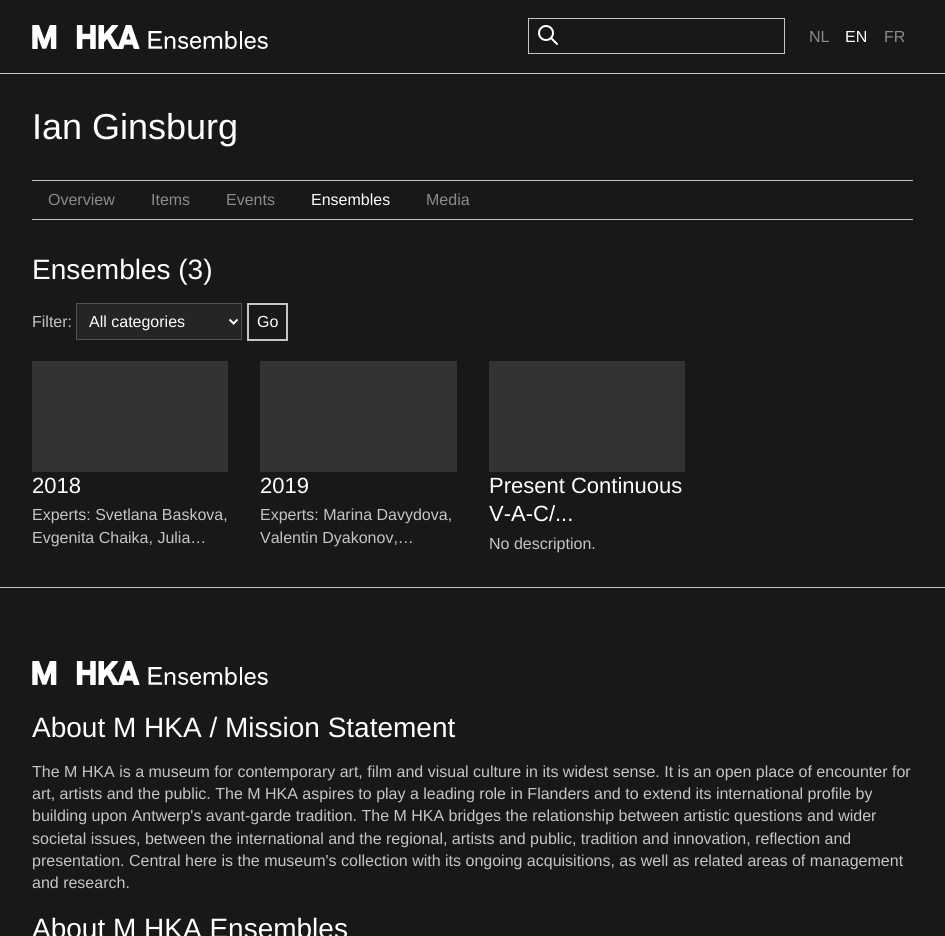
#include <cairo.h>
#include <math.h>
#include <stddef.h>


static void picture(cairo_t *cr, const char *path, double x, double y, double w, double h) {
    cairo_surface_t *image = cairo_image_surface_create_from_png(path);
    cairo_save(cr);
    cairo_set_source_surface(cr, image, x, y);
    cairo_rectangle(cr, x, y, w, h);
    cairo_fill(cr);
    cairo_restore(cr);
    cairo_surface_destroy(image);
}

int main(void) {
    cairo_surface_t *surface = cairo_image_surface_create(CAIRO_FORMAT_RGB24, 945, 936);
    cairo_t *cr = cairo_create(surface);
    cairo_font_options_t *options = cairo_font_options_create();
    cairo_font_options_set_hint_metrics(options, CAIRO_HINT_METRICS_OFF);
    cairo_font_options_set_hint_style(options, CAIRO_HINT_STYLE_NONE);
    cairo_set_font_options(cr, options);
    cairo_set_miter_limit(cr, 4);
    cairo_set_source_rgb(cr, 0.094, 0.094, 0.094);
    cairo_paint(cr);
    cairo_set_source_rgb(cr, 0.773, 0.773, 0.773);
    cairo_rectangle(cr, 0, 73, 945, 1);
    cairo_fill(cr);
    picture(cr, "img1.png", 32, 25, 236, 24);
    cairo_rectangle(cr, 528.5, 18.5, 256, 35);
    cairo_set_line_width(cr, 1);
    cairo_stroke(cr);
    picture(cr, "img2.png", 538, 25, 20, 20);
    cairo_select_font_face(cr, "Liberation Sans", CAIRO_FONT_SLANT_NORMAL, CAIRO_FONT_WEIGHT_NORMAL);
    cairo_set_font_size(cr, 16);
    cairo_set_source_rgb(cr, 0.545, 0.545, 0.545);
    cairo_move_to(cr, 809, 42);
    cairo_show_text(cr, "NL");
    cairo_set_source_rgb(cr, 1, 1, 1);
    cairo_move_to(cr, 845, 42);
    cairo_show_text(cr, "EN");
    cairo_set_source_rgb(cr, 0.545, 0.545, 0.545);
    cairo_move_to(cr, 884, 42);
    cairo_show_text(cr, "FR");
    cairo_set_font_size(cr, 36);
    cairo_set_source_rgb(cr, 1, 1, 1);
    cairo_move_to(cr, 32, 139);
    cairo_show_text(cr, "Ian Ginsburg");
    cairo_set_source_rgb(cr, 0.773, 0.773, 0.773);
    cairo_rectangle(cr, 32, 180, 881, 1);
    cairo_fill(cr);
    cairo_rectangle(cr, 32, 219, 881, 1);
    cairo_fill(cr);
    cairo_set_font_size(cr, 16);
    cairo_set_source_rgb(cr, 0.545, 0.545, 0.545);
    cairo_move_to(cr, 48, 205);
    cairo_show_text(cr, "Overview");
    cairo_move_to(cr, 151, 205);
    cairo_show_text(cr, "Items");
    cairo_move_to(cr, 226, 205);
    cairo_show_text(cr, "Events");
    cairo_set_source_rgb(cr, 1, 1, 1);
    cairo_move_to(cr, 311, 205);
    cairo_show_text(cr, "Ensembles");
    cairo_set_source_rgb(cr, 0.545, 0.545, 0.545);
    cairo_move_to(cr, 426, 205);
    cairo_show_text(cr, "Media");
    cairo_set_font_size(cr, 28);
    cairo_set_source_rgb(cr, 1, 1, 1);
    cairo_move_to(cr, 32, 279);
    cairo_show_text(cr, "Ensembles (3)");
    cairo_set_font_size(cr, 16);
    cairo_set_source_rgb(cr, 0.773, 0.773, 0.773);
    cairo_move_to(cr, 32, 327);
    cairo_show_text(cr, "Filter:");
    cairo_set_source_rgb(cr, 0.145, 0.145, 0.145);
    cairo_rectangle(cr, 76.5, 303.5, 165, 36);
    cairo_fill_preserve(cr);
    cairo_set_source_rgb(cr, 0.322, 0.322, 0.322);
    cairo_stroke(cr);
    cairo_new_path(cr);
    cairo_move_to(cr, 229.5, 319.5);
    cairo_line_to(cr, 233.5, 323.5);
    cairo_line_to(cr, 237.5, 319.5);
    cairo_set_source_rgb(cr, 1, 1, 1);
    cairo_set_line_width(cr, 2);
    cairo_stroke(cr);
    cairo_move_to(cr, 89, 327);
    cairo_show_text(cr, "All categories");
    cairo_rectangle(cr, 248, 304, 39, 36);
    cairo_set_source_rgb(cr, 0.773, 0.773, 0.773);
    cairo_stroke(cr);
    cairo_set_source_rgb(cr, 1, 1, 1);
    cairo_move_to(cr, 257, 327);
    cairo_show_text(cr, "Go");
    cairo_set_source_rgb(cr, 0.2, 0.2, 0.2);
    cairo_rectangle(cr, 32, 361, 196, 111);
    cairo_fill(cr);
    cairo_set_font_size(cr, 22);
    cairo_set_source_rgb(cr, 1, 1, 1);
    cairo_move_to(cr, 32, 493);
    cairo_show_text(cr, "2018");
    cairo_set_font_size(cr, 16);
    cairo_set_source_rgb(cr, 0.773, 0.773, 0.773);
    cairo_move_to(cr, 32, 520);
    cairo_show_text(cr, "Experts: Svetlana Baskova,");
    cairo_move_to(cr, 32, 543);
    cairo_show_text(cr, "Evgenita Chaika, Julia…");
    cairo_set_source_rgb(cr, 0.2, 0.2, 0.2);
    cairo_rectangle(cr, 260, 361, 197, 111);
    cairo_fill(cr);
    cairo_set_font_size(cr, 22);
    cairo_set_source_rgb(cr, 1, 1, 1);
    cairo_move_to(cr, 260, 493);
    cairo_show_text(cr, "2019");
    cairo_set_font_size(cr, 16);
    cairo_set_source_rgb(cr, 0.773, 0.773, 0.773);
    cairo_move_to(cr, 260, 520);
    cairo_show_text(cr, "Experts: Marina Davydova,");
    cairo_move_to(cr, 260, 543);
    cairo_show_text(cr, "Valentin Dyakonov,…");
    cairo_set_source_rgb(cr, 0.2, 0.2, 0.2);
    cairo_rectangle(cr, 489, 361, 196, 111);
    cairo_fill(cr);
    cairo_set_font_size(cr, 22);
    cairo_set_source_rgb(cr, 1, 1, 1);
    cairo_move_to(cr, 489, 493);
    cairo_show_text(cr, "Present Continuous");
    cairo_move_to(cr, 489, 521);
    cairo_show_text(cr, "V-A-C/...");
    cairo_set_font_size(cr, 16);
    cairo_set_source_rgb(cr, 0.773, 0.773, 0.773);
    cairo_move_to(cr, 489, 549);
    cairo_show_text(cr, "No description.");
    cairo_rectangle(cr, 0, 587, 945, 1);
    cairo_fill(cr);
    picture(cr, "img1.png", 32, 661, 236, 24);
    cairo_set_font_size(cr, 28);
    cairo_set_source_rgb(cr, 1, 1, 1);
    cairo_move_to(cr, 32, 737);
    cairo_show_text(cr, "About M HKA / Mission Statement");
    cairo_set_font_size(cr, 16);
    cairo_set_source_rgb(cr, 0.773, 0.773, 0.773);
    cairo_move_to(cr, 32, 777);
    cairo_show_text(cr, "The M HKA is a museum for contemporary art, film and visual culture in its widest sense. It is an open place of encounter for");
    cairo_move_to(cr, 32, 799);
    cairo_show_text(cr, "art, artists and the public. The M HKA aspires to play a leading role in Flanders and to extend its international profile by");
    cairo_move_to(cr, 32, 821);
    cairo_show_text(cr, "building upon Antwerp's avant-garde tradition. The M HKA bridges the relationship between artistic questions and wider");
    cairo_move_to(cr, 32, 844);
    cairo_show_text(cr, "societal issues, between the international and the regional, artists and public, tradition and innovation, reflection and");
    cairo_move_to(cr, 32, 866);
    cairo_show_text(cr, "presentation. Central here is the museum's collection with its ongoing acquisitions, as well as related areas of management");
    cairo_move_to(cr, 32, 888);
    cairo_show_text(cr, "and research.");
    cairo_set_font_size(cr, 28);
    cairo_set_source_rgb(cr, 1, 1, 1);
    cairo_move_to(cr, 32, 938);
    cairo_show_text(cr, "About M HKA Ensembles");
    cairo_surface_write_to_png(surface, "page.png");
    cairo_font_options_destroy(options);
    cairo_destroy(cr);
    cairo_surface_destroy(surface);
    return 0;
}
